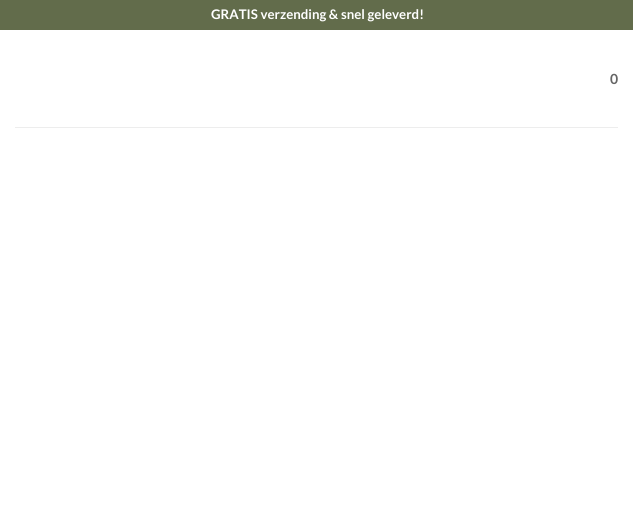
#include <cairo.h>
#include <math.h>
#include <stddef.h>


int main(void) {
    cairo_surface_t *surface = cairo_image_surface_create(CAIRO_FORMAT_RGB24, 633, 506);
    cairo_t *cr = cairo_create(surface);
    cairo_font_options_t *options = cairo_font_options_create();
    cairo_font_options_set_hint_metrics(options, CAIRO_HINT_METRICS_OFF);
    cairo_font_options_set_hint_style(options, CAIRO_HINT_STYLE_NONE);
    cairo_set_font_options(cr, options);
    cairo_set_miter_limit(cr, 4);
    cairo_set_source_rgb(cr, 1, 1, 1);
    cairo_paint(cr);
    cairo_set_source_rgb(cr, 0.384, 0.424, 0.294);
    cairo_rectangle(cr, 0, 0, 633, 30);
    cairo_fill(cr);
    cairo_select_font_face(cr, "Lato", CAIRO_FONT_SLANT_NORMAL, CAIRO_FONT_WEIGHT_BOLD);
    cairo_set_font_size(cr, 13.25);
    cairo_set_source_rgb(cr, 1, 1, 1);
    cairo_move_to(cr, 211, 19);
    cairo_show_text(cr, "GRATIS verzending & snel geleverd!");
    cairo_set_font_size(cr, 14);
    cairo_set_source_rgb(cr, 0.396, 0.396, 0.396);
    cairo_move_to(cr, 610, 84);
    cairo_show_text(cr, "0");
    cairo_set_source_rgb(cr, 0.929, 0.929, 0.929);
    cairo_rectangle(cr, 15, 127, 603, 1);
    cairo_fill(cr);
    cairo_surface_write_to_png(surface, "page.png");
    cairo_font_options_destroy(options);
    cairo_destroy(cr);
    cairo_surface_destroy(surface);
    return 0;
}
